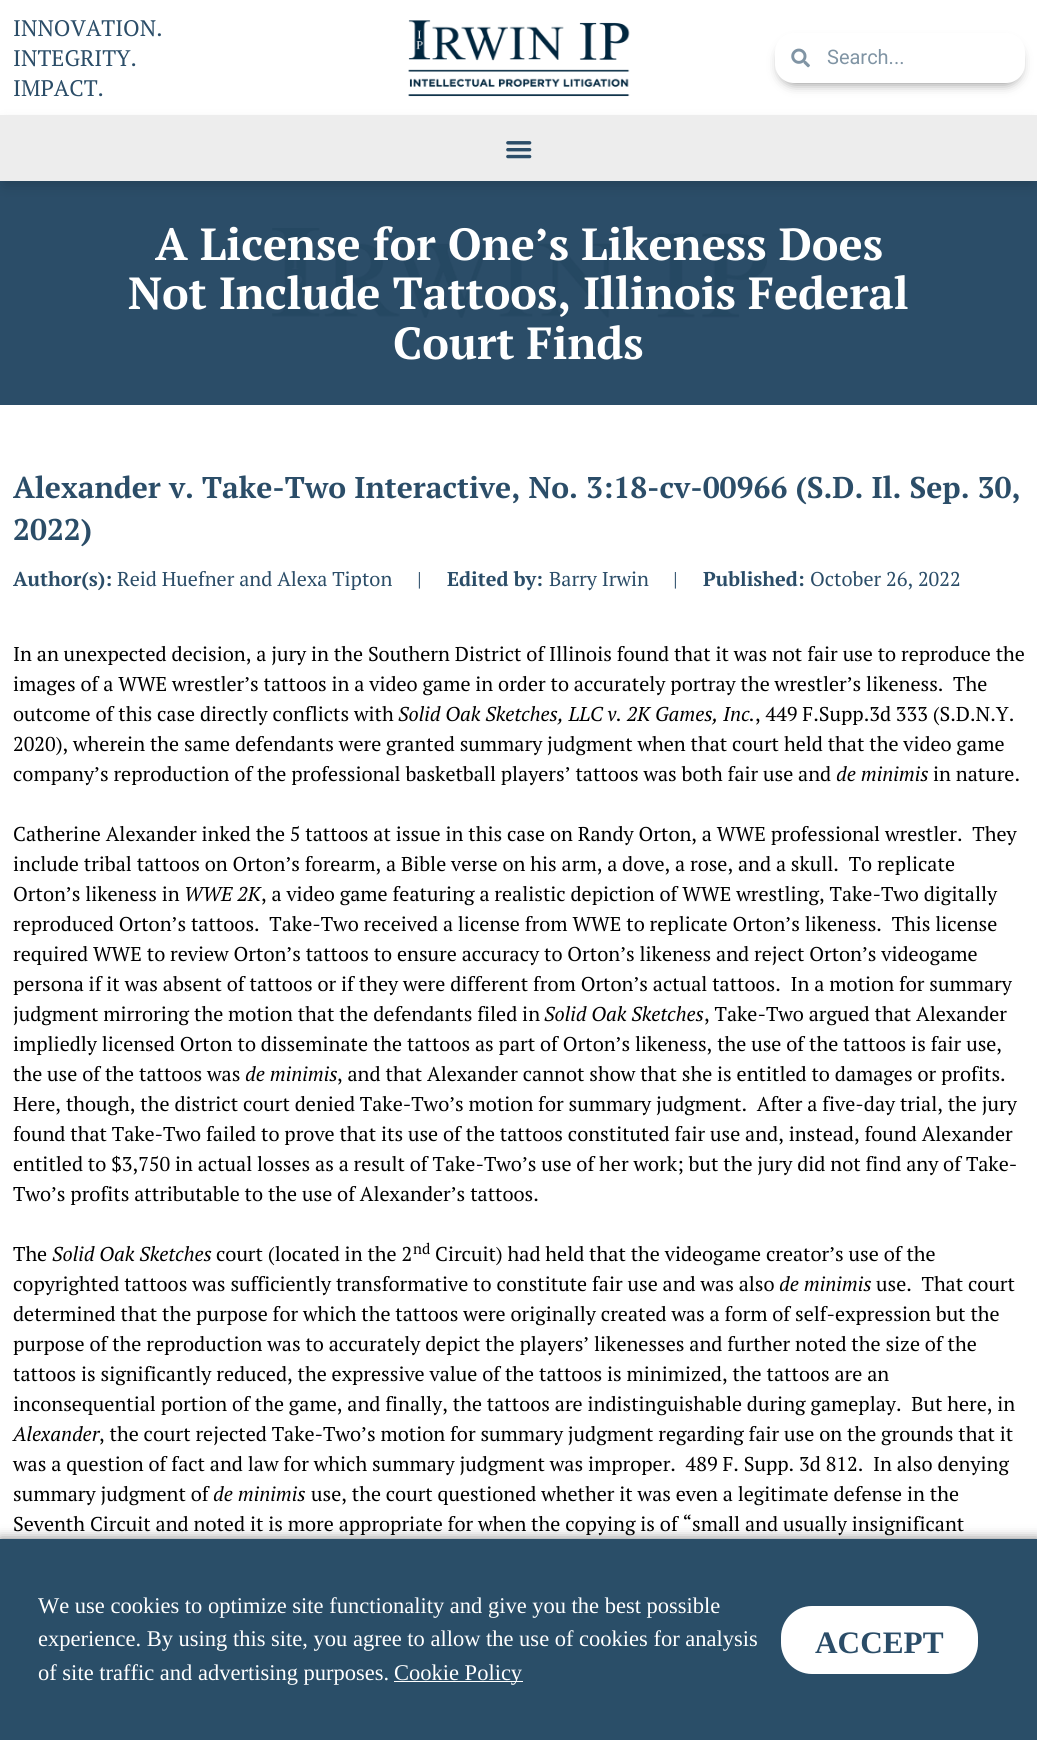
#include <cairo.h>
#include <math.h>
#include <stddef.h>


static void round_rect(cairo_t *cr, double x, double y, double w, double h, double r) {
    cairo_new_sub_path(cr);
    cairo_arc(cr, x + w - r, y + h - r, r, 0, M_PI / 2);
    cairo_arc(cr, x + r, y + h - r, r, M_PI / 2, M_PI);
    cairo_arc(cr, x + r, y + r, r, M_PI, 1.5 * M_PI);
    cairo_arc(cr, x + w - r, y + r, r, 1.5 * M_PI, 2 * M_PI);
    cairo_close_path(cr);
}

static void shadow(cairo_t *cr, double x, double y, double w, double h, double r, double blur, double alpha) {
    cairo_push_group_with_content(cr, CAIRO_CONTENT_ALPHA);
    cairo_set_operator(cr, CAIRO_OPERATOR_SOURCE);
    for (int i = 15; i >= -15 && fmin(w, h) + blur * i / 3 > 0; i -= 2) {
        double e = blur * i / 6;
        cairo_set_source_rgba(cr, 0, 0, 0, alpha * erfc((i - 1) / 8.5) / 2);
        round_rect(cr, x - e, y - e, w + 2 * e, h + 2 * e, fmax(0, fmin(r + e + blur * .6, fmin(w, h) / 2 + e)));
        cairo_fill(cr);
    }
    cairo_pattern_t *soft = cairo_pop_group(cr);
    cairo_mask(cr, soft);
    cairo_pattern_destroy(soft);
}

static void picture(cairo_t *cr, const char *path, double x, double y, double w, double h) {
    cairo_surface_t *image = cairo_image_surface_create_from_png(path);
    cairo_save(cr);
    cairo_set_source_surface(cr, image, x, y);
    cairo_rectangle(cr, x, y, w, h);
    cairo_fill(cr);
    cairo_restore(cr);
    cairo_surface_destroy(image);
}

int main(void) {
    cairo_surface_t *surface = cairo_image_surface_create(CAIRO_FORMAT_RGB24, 1037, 1740);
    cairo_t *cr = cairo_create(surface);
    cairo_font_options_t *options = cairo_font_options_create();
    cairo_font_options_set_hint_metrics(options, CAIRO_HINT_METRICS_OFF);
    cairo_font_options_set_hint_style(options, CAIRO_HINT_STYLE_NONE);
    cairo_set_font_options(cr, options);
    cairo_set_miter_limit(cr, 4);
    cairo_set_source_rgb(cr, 1, 1, 1);
    cairo_paint(cr);
    cairo_select_font_face(cr, "PT Serif", CAIRO_FONT_SLANT_NORMAL, CAIRO_FONT_WEIGHT_NORMAL);
    cairo_set_font_size(cr, 22.5);
    cairo_set_source_rgb(cr, 0.169, 0.302, 0.408);
    cairo_move_to(cr, 13, 36);
    cairo_show_text(cr, "INNOVATION.");
    cairo_move_to(cr, 13, 66);
    cairo_show_text(cr, "INTEGRITY.");
    cairo_move_to(cr, 13, 96);
    cairo_show_text(cr, "IMPACT.");
    picture(cr, "img1.png", 408, 20, 222, 77);
    cairo_set_source_rgb(cr, 0, 0, 0);
    shadow(cr, 781, 45, 238, 38, 13, 6, 0.5);
    cairo_set_source_rgb(cr, 1, 1, 1);
    round_rect(cr, 775, 33, 250, 50, 19);
    cairo_fill(cr);
    picture(cr, "img2.png", 791, 48, 19, 20);
    cairo_select_font_face(cr, "Roboto", CAIRO_FONT_SLANT_NORMAL, CAIRO_FONT_WEIGHT_NORMAL);
    cairo_set_font_size(cr, 20);
    cairo_set_source_rgb(cr, 0.502, 0.58, 0.643);
    cairo_move_to(cr, 827, 64);
    cairo_show_text(cr, "Search...");
    cairo_set_source_rgb(cr, 0.169, 0.302, 0.408);
    cairo_rectangle(cr, 0, 181, 1037, 224);
    cairo_fill(cr);
    cairo_set_source_rgb(cr, 0, 0, 0);
    shadow(cr, 5, 126, 1028, 57, 0, 8, 0.21);
    cairo_set_source_rgb(cr, 0.929, 0.929, 0.929);
    cairo_rectangle(cr, 0, 115, 1037, 66);
    cairo_fill(cr);
    picture(cr, "img3.png", 506, 141, 26, 18);
    picture(cr, "img4.png", 272, 228, 495, 90);
    cairo_select_font_face(cr, "PT Serif", CAIRO_FONT_SLANT_NORMAL, CAIRO_FONT_WEIGHT_BOLD);
    cairo_set_font_size(cr, 45);
    cairo_set_source_rgb(cr, 1, 1, 1);
    cairo_move_to(cr, 155, 260);
    cairo_show_text(cr, "A License for One’s Likeness Does");
    cairo_move_to(cr, 128, 309);
    cairo_show_text(cr, "Not Include Tattoos, Illinois Federal");
    cairo_move_to(cr, 393, 359);
    cairo_show_text(cr, "Court Finds");
    cairo_set_font_size(cr, 30);
    cairo_set_source_rgb(cr, 0.169, 0.302, 0.408);
    cairo_move_to(cr, 13, 498);
    cairo_show_text(cr, "Alexander v. Take-Two Interactive, No. 3:18-cv-00966 (S.D. Il. Sep. 30,");
    cairo_move_to(cr, 13, 540);
    cairo_show_text(cr, "2022)");
    cairo_set_font_size(cr, 20);
    cairo_move_to(cr, 13, 586);
    cairo_show_text(cr, "Author(s):");
    cairo_select_font_face(cr, "PT Serif", CAIRO_FONT_SLANT_NORMAL, CAIRO_FONT_WEIGHT_NORMAL);
    cairo_move_to(cr, 117, 586);
    cairo_show_text(cr, "Reid Huefner and Alexa Tipton");
    cairo_move_to(cr, 417, 586);
    cairo_show_text(cr, "|");
    cairo_select_font_face(cr, "PT Serif", CAIRO_FONT_SLANT_NORMAL, CAIRO_FONT_WEIGHT_BOLD);
    cairo_move_to(cr, 447, 586);
    cairo_show_text(cr, "Edited by:");
    cairo_select_font_face(cr, "PT Serif", CAIRO_FONT_SLANT_NORMAL, CAIRO_FONT_WEIGHT_NORMAL);
    cairo_move_to(cr, 549, 586);
    cairo_show_text(cr, "Barry Irwin");
    cairo_move_to(cr, 673, 586);
    cairo_show_text(cr, "|");
    cairo_select_font_face(cr, "PT Serif", CAIRO_FONT_SLANT_NORMAL, CAIRO_FONT_WEIGHT_BOLD);
    cairo_move_to(cr, 703, 586);
    cairo_show_text(cr, "Published:");
    cairo_select_font_face(cr, "PT Serif", CAIRO_FONT_SLANT_NORMAL, CAIRO_FONT_WEIGHT_NORMAL);
    cairo_move_to(cr, 810, 586);
    cairo_show_text(cr, "October 26, 2022");
    cairo_set_source_rgb(cr, 0, 0, 0);
    cairo_move_to(cr, 13, 661);
    cairo_show_text(cr, "In an unexpected decision, a jury in the Southern District of Illinois found that it was not fair use to reproduce the");
    cairo_move_to(cr, 13, 691);
    cairo_show_text(cr, "images of a WWE wrestler’s tattoos in a video game in order to accurately portray the wrestler’s likeness.  The");
    cairo_move_to(cr, 13, 721);
    cairo_show_text(cr, "outcome of this case directly conflicts with");
    cairo_select_font_face(cr, "PT Serif", CAIRO_FONT_SLANT_ITALIC, CAIRO_FONT_WEIGHT_NORMAL);
    cairo_move_to(cr, 398, 721);
    cairo_show_text(cr, "Solid Oak Sketches, LLC v. 2K Games, Inc.");
    cairo_select_font_face(cr, "PT Serif", CAIRO_FONT_SLANT_NORMAL, CAIRO_FONT_WEIGHT_NORMAL);
    cairo_move_to(cr, 755, 721);
    cairo_show_text(cr, ", 449 F.Supp.3d 333 (S.D.N.Y.");
    cairo_move_to(cr, 13, 751);
    cairo_show_text(cr, "2020), wherein the same defendants were granted summary judgment when that court held that the video game");
    cairo_move_to(cr, 13, 781);
    cairo_show_text(cr, "company’s reproduction of the professional basketball players’ tattoos was both fair use and");
    cairo_select_font_face(cr, "PT Serif", CAIRO_FONT_SLANT_ITALIC, CAIRO_FONT_WEIGHT_NORMAL);
    cairo_move_to(cr, 836, 781);
    cairo_show_text(cr, "de minimis");
    cairo_select_font_face(cr, "PT Serif", CAIRO_FONT_SLANT_NORMAL, CAIRO_FONT_WEIGHT_NORMAL);
    cairo_move_to(cr, 933, 781);
    cairo_show_text(cr, "in nature.");
    cairo_move_to(cr, 13, 841);
    cairo_show_text(cr, "Catherine Alexander inked the 5 tattoos at issue in this case on Randy Orton, a WWE professional wrestler.  They");
    cairo_move_to(cr, 13, 871);
    cairo_show_text(cr, "include tribal tattoos on Orton’s forearm, a Bible verse on his arm, a dove, a rose, and a skull.  To replicate");
    cairo_move_to(cr, 13, 901);
    cairo_show_text(cr, "Orton’s likeness in");
    cairo_select_font_face(cr, "PT Serif", CAIRO_FONT_SLANT_ITALIC, CAIRO_FONT_WEIGHT_NORMAL);
    cairo_move_to(cr, 184, 901);
    cairo_show_text(cr, "WWE 2K");
    cairo_select_font_face(cr, "PT Serif", CAIRO_FONT_SLANT_NORMAL, CAIRO_FONT_WEIGHT_NORMAL);
    cairo_move_to(cr, 261, 901);
    cairo_show_text(cr, ", a video game featuring a realistic depiction of WWE wrestling, Take-Two digitally");
    cairo_move_to(cr, 13, 931);
    cairo_show_text(cr, "reproduced Orton’s tattoos.  Take-Two received a license from WWE to replicate Orton’s likeness.  This license");
    cairo_move_to(cr, 13, 961);
    cairo_show_text(cr, "required WWE to review Orton’s tattoos to ensure accuracy to Orton’s likeness and reject Orton’s videogame");
    cairo_move_to(cr, 13, 991);
    cairo_show_text(cr, "persona if it was absent of tattoos or if they were different from Orton’s actual tattoos.  In a motion for summary");
    cairo_move_to(cr, 13, 1021);
    cairo_show_text(cr, "judgment mirroring the motion that the defendants filed in");
    cairo_select_font_face(cr, "PT Serif", CAIRO_FONT_SLANT_ITALIC, CAIRO_FONT_WEIGHT_NORMAL);
    cairo_move_to(cr, 544, 1021);
    cairo_show_text(cr, "Solid Oak Sketches");
    cairo_select_font_face(cr, "PT Serif", CAIRO_FONT_SLANT_NORMAL, CAIRO_FONT_WEIGHT_NORMAL);
    cairo_move_to(cr, 704, 1021);
    cairo_show_text(cr, ", Take-Two argued that Alexander");
    cairo_move_to(cr, 13, 1051);
    cairo_show_text(cr, "impliedly licensed Orton to disseminate the tattoos as part of Orton’s likeness, the use of the tattoos is fair use,");
    cairo_move_to(cr, 13, 1081);
    cairo_show_text(cr, "the use of the tattoos was");
    cairo_select_font_face(cr, "PT Serif", CAIRO_FONT_SLANT_ITALIC, CAIRO_FONT_WEIGHT_NORMAL);
    cairo_move_to(cr, 245, 1081);
    cairo_show_text(cr, "de minimis");
    cairo_select_font_face(cr, "PT Serif", CAIRO_FONT_SLANT_NORMAL, CAIRO_FONT_WEIGHT_NORMAL);
    cairo_move_to(cr, 337, 1081);
    cairo_show_text(cr, ", and that Alexander cannot show that she is entitled to damages or profits.");
    cairo_move_to(cr, 13, 1111);
    cairo_show_text(cr, "Here, though, the district court denied Take-Two’s motion for summary judgment.  After a five-day trial, the jury");
    cairo_move_to(cr, 13, 1141);
    cairo_show_text(cr, "found that Take-Two failed to prove that its use of the tattoos constituted fair use and, instead, found Alexander");
    cairo_move_to(cr, 13, 1171);
    cairo_show_text(cr, "entitled to $3,750 in actual losses as a result of Take-Two’s use of her work; but the jury did not find any of Take-");
    cairo_move_to(cr, 13, 1201);
    cairo_show_text(cr, "Two’s profits attributable to the use of Alexander’s tattoos.");
    cairo_move_to(cr, 13, 1261);
    cairo_show_text(cr, "The");
    cairo_select_font_face(cr, "PT Serif", CAIRO_FONT_SLANT_ITALIC, CAIRO_FONT_WEIGHT_NORMAL);
    cairo_move_to(cr, 52, 1261);
    cairo_show_text(cr, "Solid Oak Sketches");
    cairo_select_font_face(cr, "PT Serif", CAIRO_FONT_SLANT_NORMAL, CAIRO_FONT_WEIGHT_NORMAL);
    cairo_move_to(cr, 216, 1261);
    cairo_show_text(cr, "court (located in the 2");
    cairo_set_font_size(cr, 15);
    cairo_move_to(cr, 413, 1254);
    cairo_show_text(cr, "nd");
    cairo_set_font_size(cr, 20);
    cairo_move_to(cr, 435, 1261);
    cairo_show_text(cr, "Circuit) had held that the videogame creator’s use of the");
    cairo_move_to(cr, 13, 1291);
    cairo_show_text(cr, "copyrighted tattoos was sufficiently transformative to constitute fair use and was also");
    cairo_select_font_face(cr, "PT Serif", CAIRO_FONT_SLANT_ITALIC, CAIRO_FONT_WEIGHT_NORMAL);
    cairo_move_to(cr, 779, 1291);
    cairo_show_text(cr, "de minimis");
    cairo_select_font_face(cr, "PT Serif", CAIRO_FONT_SLANT_NORMAL, CAIRO_FONT_WEIGHT_NORMAL);
    cairo_move_to(cr, 876, 1291);
    cairo_show_text(cr, "use.  That court");
    cairo_move_to(cr, 13, 1321);
    cairo_show_text(cr, "determined that the purpose for which the tattoos were originally created was a form of self-expression but the");
    cairo_move_to(cr, 13, 1351);
    cairo_show_text(cr, "purpose of the reproduction was to accurately depict the players’ likenesses and further noted the size of the");
    cairo_move_to(cr, 13, 1381);
    cairo_show_text(cr, "tattoos is significantly reduced, the expressive value of the tattoos is minimized, the tattoos are an");
    cairo_move_to(cr, 13, 1411);
    cairo_show_text(cr, "inconsequential portion of the game, and finally, the tattoos are indistinguishable during gameplay.  But here, in");
    cairo_select_font_face(cr, "PT Serif", CAIRO_FONT_SLANT_ITALIC, CAIRO_FONT_WEIGHT_NORMAL);
    cairo_move_to(cr, 13, 1441);
    cairo_show_text(cr, "Alexander");
    cairo_select_font_face(cr, "PT Serif", CAIRO_FONT_SLANT_NORMAL, CAIRO_FONT_WEIGHT_NORMAL);
    cairo_move_to(cr, 99, 1441);
    cairo_show_text(cr, ", the court rejected Take-Two’s motion for summary judgment regarding fair use on the grounds that it");
    cairo_move_to(cr, 13, 1471);
    cairo_show_text(cr, "was a question of fact and law for which summary judgment was improper.  489 F. Supp. 3d 812.  In also denying");
    cairo_move_to(cr, 13, 1501);
    cairo_show_text(cr, "summary judgment of");
    cairo_select_font_face(cr, "PT Serif", CAIRO_FONT_SLANT_ITALIC, CAIRO_FONT_WEIGHT_NORMAL);
    cairo_move_to(cr, 213, 1501);
    cairo_show_text(cr, "de minimis");
    cairo_select_font_face(cr, "PT Serif", CAIRO_FONT_SLANT_NORMAL, CAIRO_FONT_WEIGHT_NORMAL);
    cairo_move_to(cr, 311, 1501);
    cairo_show_text(cr, "use, the court questioned whether it was even a legitimate defense in the");
    cairo_move_to(cr, 13, 1531);
    cairo_show_text(cr, "Seventh Circuit and noted it is more appropriate for when the copying is of “small and usually insignificant");
    cairo_set_source_rgb(cr, 0, 0, 0);
    shadow(cr, 0, 1539, 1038, 201, 0, 6, 0.5);
    cairo_set_source_rgb(cr, 0.165, 0.306, 0.408);
    cairo_rectangle(cr, 0, 1539, 1037, 201);
    cairo_fill(cr);
    cairo_select_font_face(cr, "Liberation Serif", CAIRO_FONT_SLANT_NORMAL, CAIRO_FONT_WEIGHT_NORMAL);
    cairo_set_font_size(cr, 22.5);
    cairo_set_source_rgb(cr, 1, 1, 1);
    cairo_move_to(cr, 38, 1613);
    cairo_show_text(cr, "We use cookies to optimize site functionality and give you the best possible");
    cairo_move_to(cr, 38, 1646);
    cairo_show_text(cr, "experience. By using this site, you agree to allow the use of cookies for analysis");
    cairo_move_to(cr, 38, 1680);
    cairo_show_text(cr, "of site traffic and advertising purposes.");
    cairo_rectangle(cr, 394, 1681, 129, 1);
    cairo_fill(cr);
    cairo_move_to(cr, 394, 1680);
    cairo_show_text(cr, "Cookie Policy");
    round_rect(cr, 782.5, 1607.5, 194, 65, 29.5);
    cairo_fill_preserve(cr);
    cairo_set_line_width(cr, 3);
    cairo_stroke(cr);
    cairo_select_font_face(cr, "Liberation Serif", CAIRO_FONT_SLANT_NORMAL, CAIRO_FONT_WEIGHT_BOLD);
    cairo_set_font_size(cr, 31.25);
    cairo_set_source_rgb(cr, 0.169, 0.302, 0.408);
    cairo_move_to(cr, 815, 1653);
    cairo_show_text(cr, "ACCEPT");
    cairo_surface_write_to_png(surface, "page.png");
    cairo_font_options_destroy(options);
    cairo_destroy(cr);
    cairo_surface_destroy(surface);
    return 0;
}
